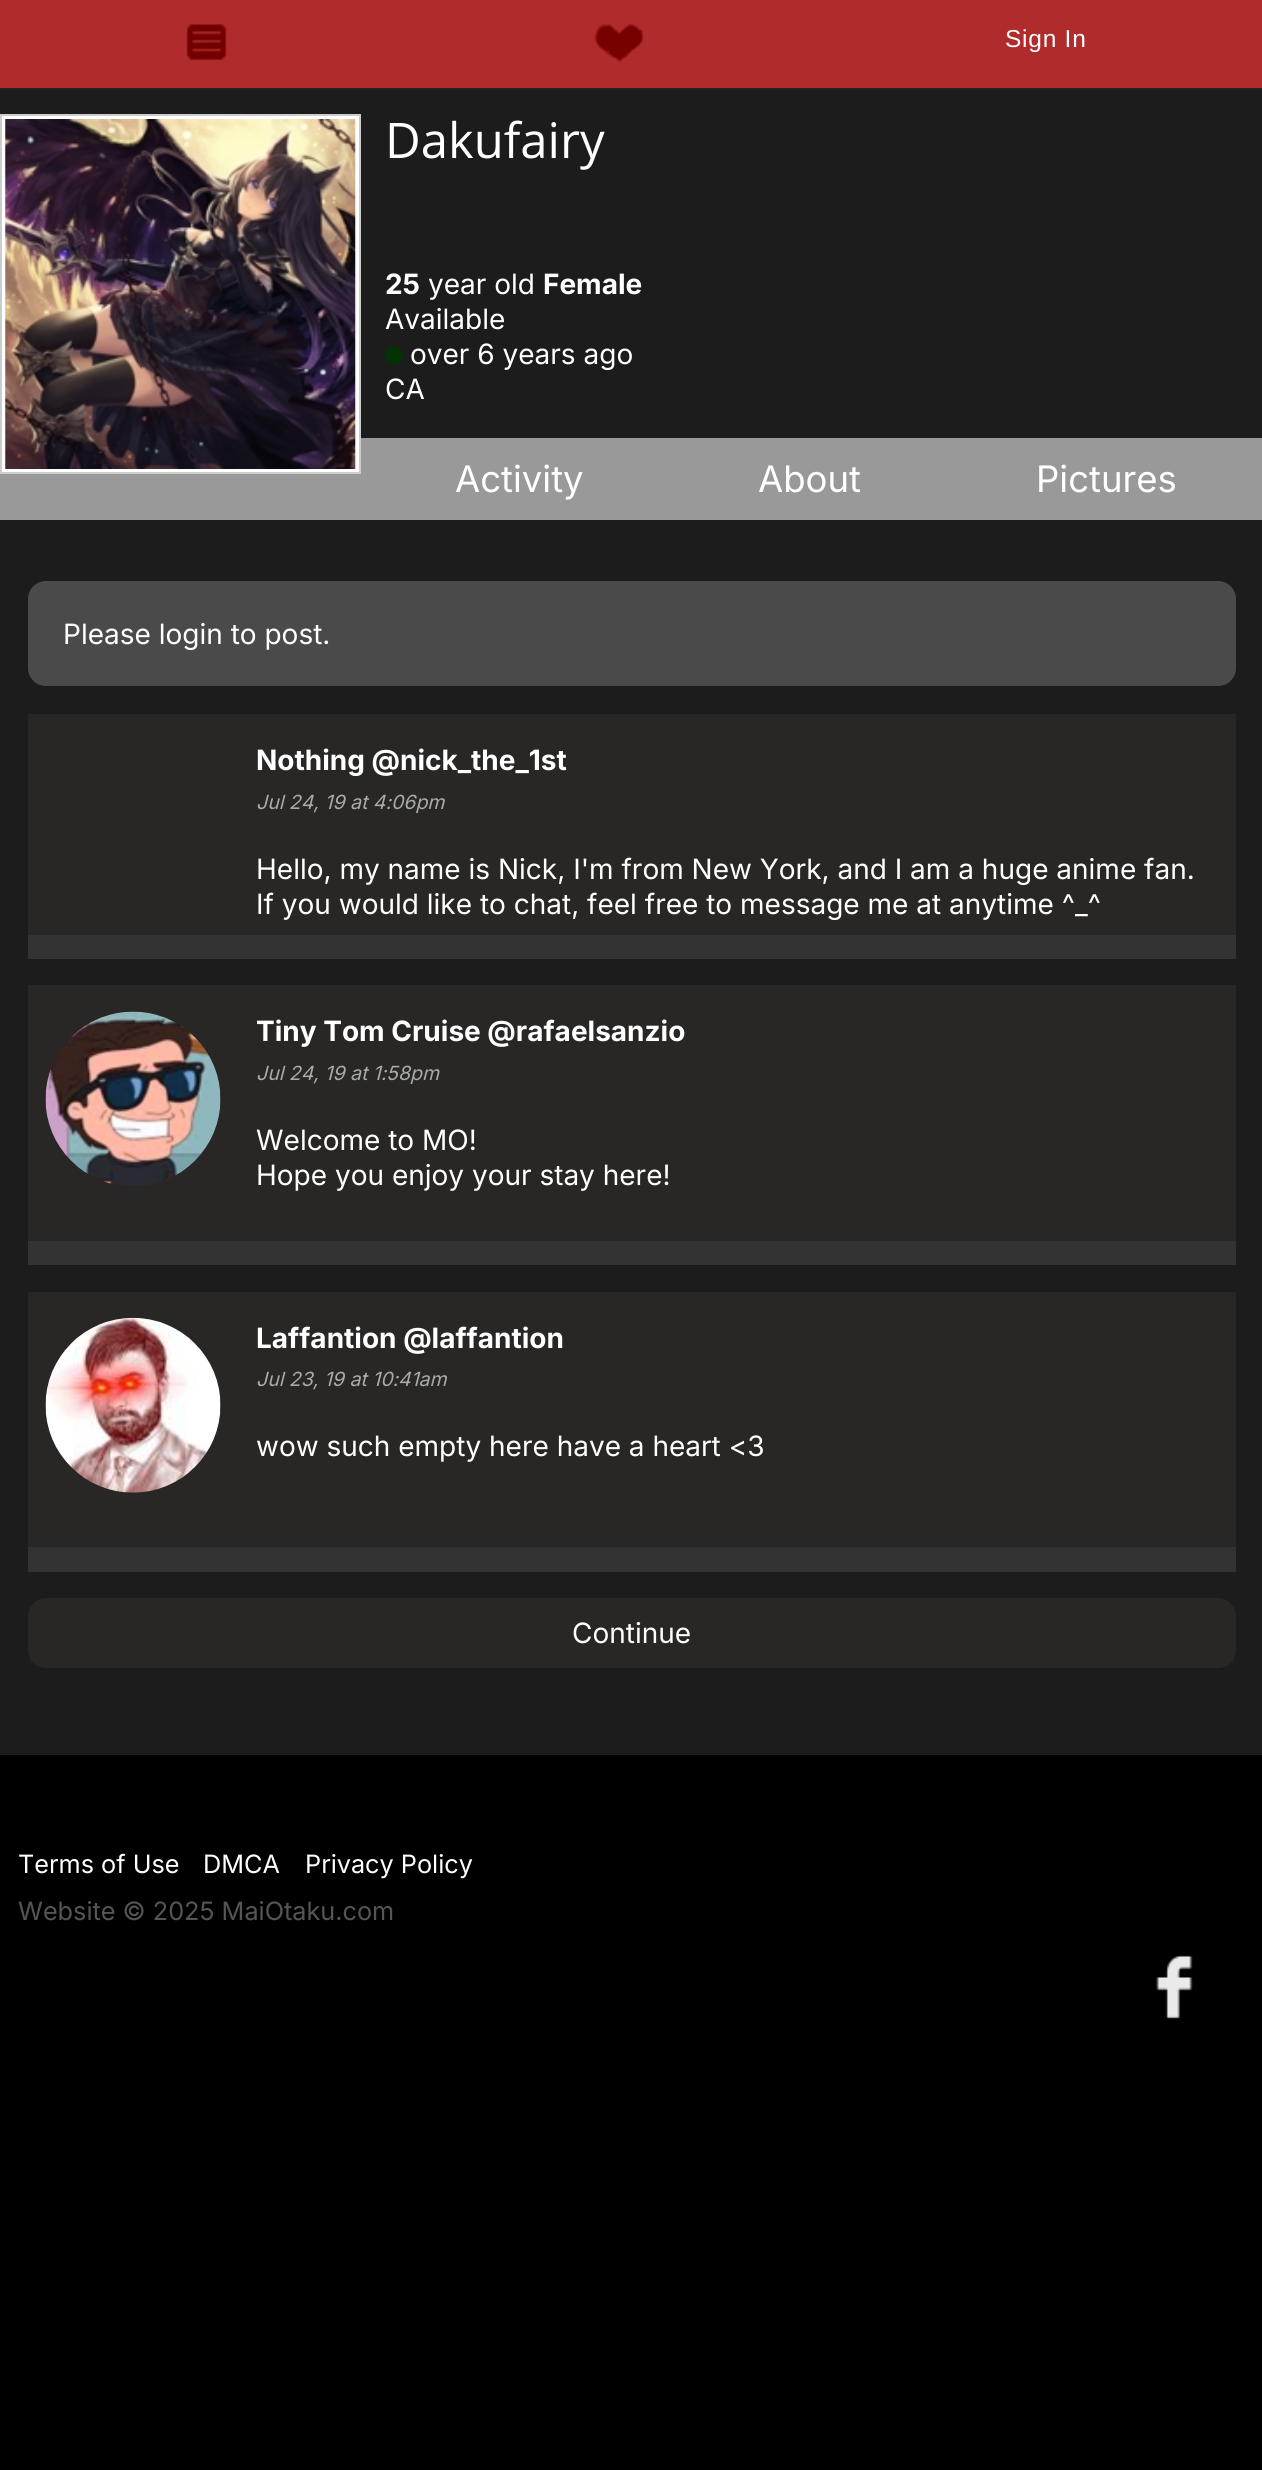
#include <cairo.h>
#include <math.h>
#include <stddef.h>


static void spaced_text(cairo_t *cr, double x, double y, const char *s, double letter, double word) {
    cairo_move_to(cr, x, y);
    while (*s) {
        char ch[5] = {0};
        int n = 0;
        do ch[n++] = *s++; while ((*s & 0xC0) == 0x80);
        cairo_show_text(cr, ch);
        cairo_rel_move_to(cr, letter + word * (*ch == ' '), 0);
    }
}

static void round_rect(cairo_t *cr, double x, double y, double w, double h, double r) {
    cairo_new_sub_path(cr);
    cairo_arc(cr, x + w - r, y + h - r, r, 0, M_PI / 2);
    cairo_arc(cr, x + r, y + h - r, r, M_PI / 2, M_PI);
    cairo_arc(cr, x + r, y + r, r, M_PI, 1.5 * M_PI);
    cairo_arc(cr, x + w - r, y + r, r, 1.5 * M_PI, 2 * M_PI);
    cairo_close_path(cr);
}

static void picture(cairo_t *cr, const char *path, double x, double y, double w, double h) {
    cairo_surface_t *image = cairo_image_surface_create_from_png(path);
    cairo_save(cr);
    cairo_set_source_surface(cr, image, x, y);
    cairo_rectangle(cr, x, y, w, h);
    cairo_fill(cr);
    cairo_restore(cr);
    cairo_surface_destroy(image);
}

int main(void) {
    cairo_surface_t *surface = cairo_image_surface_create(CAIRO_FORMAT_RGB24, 1262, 2470);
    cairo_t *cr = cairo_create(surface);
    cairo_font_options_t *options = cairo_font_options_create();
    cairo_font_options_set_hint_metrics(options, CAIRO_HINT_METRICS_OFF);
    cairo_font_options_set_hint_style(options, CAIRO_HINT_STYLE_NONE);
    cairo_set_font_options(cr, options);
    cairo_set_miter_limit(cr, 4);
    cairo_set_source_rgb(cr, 0, 0, 0);
    cairo_paint(cr);
    cairo_set_source_rgb(cr, 0.69, 0.169, 0.173);
    cairo_rectangle(cr, 0, 0, 1262, 88);
    cairo_fill(cr);
    cairo_set_source_rgb(cr, 0.133, 0.133, 0.133);
    cairo_rectangle(cr, 0, 88, 1262, 2);
    cairo_fill(cr);
    picture(cr, "img1.png", 186, 24, 41, 37);
    picture(cr, "img2.png", 594, 24, 50, 38);
    cairo_select_font_face(cr, "Liberation Sans", CAIRO_FONT_SLANT_NORMAL, CAIRO_FONT_WEIGHT_NORMAL);
    cairo_set_font_size(cr, 24.5);
    cairo_set_source_rgb(cr, 1, 1, 1);
    spaced_text(cr, 1005, 47, "Sign In", 0.75, 0);
    cairo_set_source_rgb(cr, 0.114, 0.11, 0.11);
    cairo_rectangle(cr, 0, 90, 1262, 1665);
    cairo_fill(cr);
    cairo_set_source_rgb(cr, 0.6, 0.6, 0.6);
    cairo_rectangle(cr, 0, 438, 1262, 82);
    cairo_fill(cr);
    cairo_set_source_rgb(cr, 1, 1, 1);
    cairo_rectangle(cr, 1, 115, 359, 358);
    cairo_fill_preserve(cr);
    cairo_set_source_rgb(cr, 0.8, 0.8, 0.8);
    cairo_stroke(cr);
    picture(cr, "img3.png", 5, 119, 351, 350);
    cairo_select_font_face(cr, "Open Sans", CAIRO_FONT_SLANT_NORMAL, CAIRO_FONT_WEIGHT_NORMAL);
    cairo_set_font_size(cr, 49);
    cairo_set_source_rgb(cr, 1, 1, 1);
    cairo_move_to(cr, 385, 158);
    cairo_show_text(cr, "Dakufairy");
    cairo_select_font_face(cr, "Inter", CAIRO_FONT_SLANT_NORMAL, CAIRO_FONT_WEIGHT_BOLD);
    cairo_set_font_size(cr, 28);
    cairo_move_to(cr, 385, 294);
    cairo_show_text(cr, "25");
    cairo_select_font_face(cr, "Inter", CAIRO_FONT_SLANT_NORMAL, CAIRO_FONT_WEIGHT_NORMAL);
    cairo_move_to(cr, 428, 294);
    cairo_show_text(cr, "year old");
    cairo_select_font_face(cr, "Inter", CAIRO_FONT_SLANT_NORMAL, CAIRO_FONT_WEIGHT_BOLD);
    cairo_move_to(cr, 543, 294);
    cairo_show_text(cr, "Female");
    cairo_select_font_face(cr, "Inter", CAIRO_FONT_SLANT_NORMAL, CAIRO_FONT_WEIGHT_NORMAL);
    cairo_move_to(cr, 385, 329);
    cairo_show_text(cr, "Available");
    cairo_set_source_rgb(cr, 0, 0.2, 0);
    round_rect(cr, 385, 347, 18, 17, 8.5);
    cairo_fill(cr);
    cairo_set_source_rgb(cr, 1, 1, 1);
    cairo_move_to(cr, 410, 364);
    cairo_show_text(cr, "over 6 years ago");
    cairo_move_to(cr, 385, 399);
    cairo_show_text(cr, "CA");
    cairo_set_font_size(cr, 36.5);
    cairo_move_to(cr, 455, 492);
    cairo_show_text(cr, "Activity");
    cairo_move_to(cr, 758, 492);
    cairo_show_text(cr, "About");
    cairo_move_to(cr, 1036, 492);
    cairo_show_text(cr, "Pictures");
    cairo_set_source_rgb(cr, 0.29, 0.29, 0.29);
    round_rect(cr, 28, 581, 1208, 105, 18);
    cairo_fill(cr);
    cairo_set_font_size(cr, 28);
    cairo_set_source_rgb(cr, 1, 1, 1);
    cairo_move_to(cr, 63, 644);
    cairo_show_text(cr, "Please login to post.");
    cairo_set_source_rgb(cr, 0.157, 0.153, 0.145);
    cairo_rectangle(cr, 28, 714, 1208, 221);
    cairo_fill(cr);
    cairo_select_font_face(cr, "Inter", CAIRO_FONT_SLANT_NORMAL, CAIRO_FONT_WEIGHT_BOLD);
    cairo_set_source_rgb(cr, 1, 1, 1);
    cairo_move_to(cr, 256, 770);
    cairo_show_text(cr, "Nothing @nick_the_1st");
    cairo_select_font_face(cr, "Inter", CAIRO_FONT_SLANT_ITALIC, CAIRO_FONT_WEIGHT_NORMAL);
    cairo_set_font_size(cr, 19.5);
    cairo_set_source_rgb(cr, 0.667, 0.667, 0.667);
    cairo_move_to(cr, 256, 809);
    cairo_show_text(cr, "Jul 24, 19 at 4:06pm");
    cairo_select_font_face(cr, "Inter", CAIRO_FONT_SLANT_NORMAL, CAIRO_FONT_WEIGHT_NORMAL);
    cairo_set_font_size(cr, 28);
    cairo_set_source_rgb(cr, 1, 1, 1);
    cairo_move_to(cr, 256, 879);
    cairo_show_text(cr, "Hello, my name is Nick, I'm from New York, and I am a huge anime fan.");
    cairo_move_to(cr, 256, 914);
    cairo_show_text(cr, "If you would like to chat, feel free to message me at anytime ^_^");
    cairo_set_source_rgb(cr, 0.2, 0.2, 0.2);
    cairo_rectangle(cr, 28, 935, 1208, 24);
    cairo_fill(cr);
    cairo_set_source_rgb(cr, 0.157, 0.153, 0.145);
    cairo_rectangle(cr, 28, 985, 1208, 256);
    cairo_fill(cr);
    picture(cr, "img4.png", 45, 1011, 176, 175);
    cairo_select_font_face(cr, "Inter", CAIRO_FONT_SLANT_NORMAL, CAIRO_FONT_WEIGHT_BOLD);
    cairo_set_source_rgb(cr, 1, 1, 1);
    cairo_move_to(cr, 256, 1041);
    cairo_show_text(cr, "Tiny Tom Cruise @rafaelsanzio");
    cairo_select_font_face(cr, "Inter", CAIRO_FONT_SLANT_ITALIC, CAIRO_FONT_WEIGHT_NORMAL);
    cairo_set_font_size(cr, 19.5);
    cairo_set_source_rgb(cr, 0.667, 0.667, 0.667);
    cairo_move_to(cr, 256, 1080);
    cairo_show_text(cr, "Jul 24, 19 at 1:58pm");
    cairo_select_font_face(cr, "Inter", CAIRO_FONT_SLANT_NORMAL, CAIRO_FONT_WEIGHT_NORMAL);
    cairo_set_font_size(cr, 28);
    cairo_set_source_rgb(cr, 1, 1, 1);
    cairo_move_to(cr, 256, 1150);
    cairo_show_text(cr, "Welcome to MO!");
    cairo_move_to(cr, 256, 1185);
    cairo_show_text(cr, "Hope you enjoy your stay here!");
    cairo_set_source_rgb(cr, 0.2, 0.2, 0.2);
    cairo_rectangle(cr, 28, 1241, 1208, 24);
    cairo_fill(cr);
    cairo_set_source_rgb(cr, 0.157, 0.153, 0.145);
    cairo_rectangle(cr, 28, 1292, 1208, 255);
    cairo_fill(cr);
    picture(cr, "img5.png", 45, 1317, 176, 176);
    cairo_select_font_face(cr, "Inter", CAIRO_FONT_SLANT_NORMAL, CAIRO_FONT_WEIGHT_BOLD);
    cairo_set_source_rgb(cr, 1, 1, 1);
    cairo_move_to(cr, 256, 1348);
    cairo_show_text(cr, "Laffantion @laffantion");
    cairo_select_font_face(cr, "Inter", CAIRO_FONT_SLANT_ITALIC, CAIRO_FONT_WEIGHT_NORMAL);
    cairo_set_font_size(cr, 19.5);
    cairo_set_source_rgb(cr, 0.667, 0.667, 0.667);
    cairo_move_to(cr, 256, 1386);
    cairo_show_text(cr, "Jul 23, 19 at 10:41am");
    cairo_select_font_face(cr, "Inter", CAIRO_FONT_SLANT_NORMAL, CAIRO_FONT_WEIGHT_NORMAL);
    cairo_set_font_size(cr, 28);
    cairo_set_source_rgb(cr, 1, 1, 1);
    cairo_move_to(cr, 256, 1456);
    cairo_show_text(cr, "wow such empty here have a heart <3");
    cairo_set_source_rgb(cr, 0.2, 0.2, 0.2);
    cairo_rectangle(cr, 28, 1547, 1208, 25);
    cairo_fill(cr);
    cairo_set_source_rgb(cr, 0.157, 0.153, 0.145);
    round_rect(cr, 28, 1598, 1208, 70, 18);
    cairo_fill(cr);
    cairo_set_source_rgb(cr, 1, 1, 1);
    cairo_move_to(cr, 572, 1643);
    cairo_show_text(cr, "Continue");
    cairo_set_font_size(cr, 25.25);
    cairo_move_to(cr, 18, 1873);
    cairo_show_text(cr, "Terms of Use");
    cairo_move_to(cr, 203, 1873);
    cairo_show_text(cr, "DMCA");
    cairo_move_to(cr, 305, 1873);
    cairo_show_text(cr, "Privacy Policy");
    cairo_set_source_rgb(cr, 0.333, 0.333, 0.333);
    cairo_move_to(cr, 18, 1920);
    cairo_show_text(cr, "Website © 2025 MaiOtaku.com");
    picture(cr, "img6.png", 1156, 1955, 37, 64);
    cairo_surface_write_to_png(surface, "page.png");
    cairo_font_options_destroy(options);
    cairo_destroy(cr);
    cairo_surface_destroy(surface);
    return 0;
}
